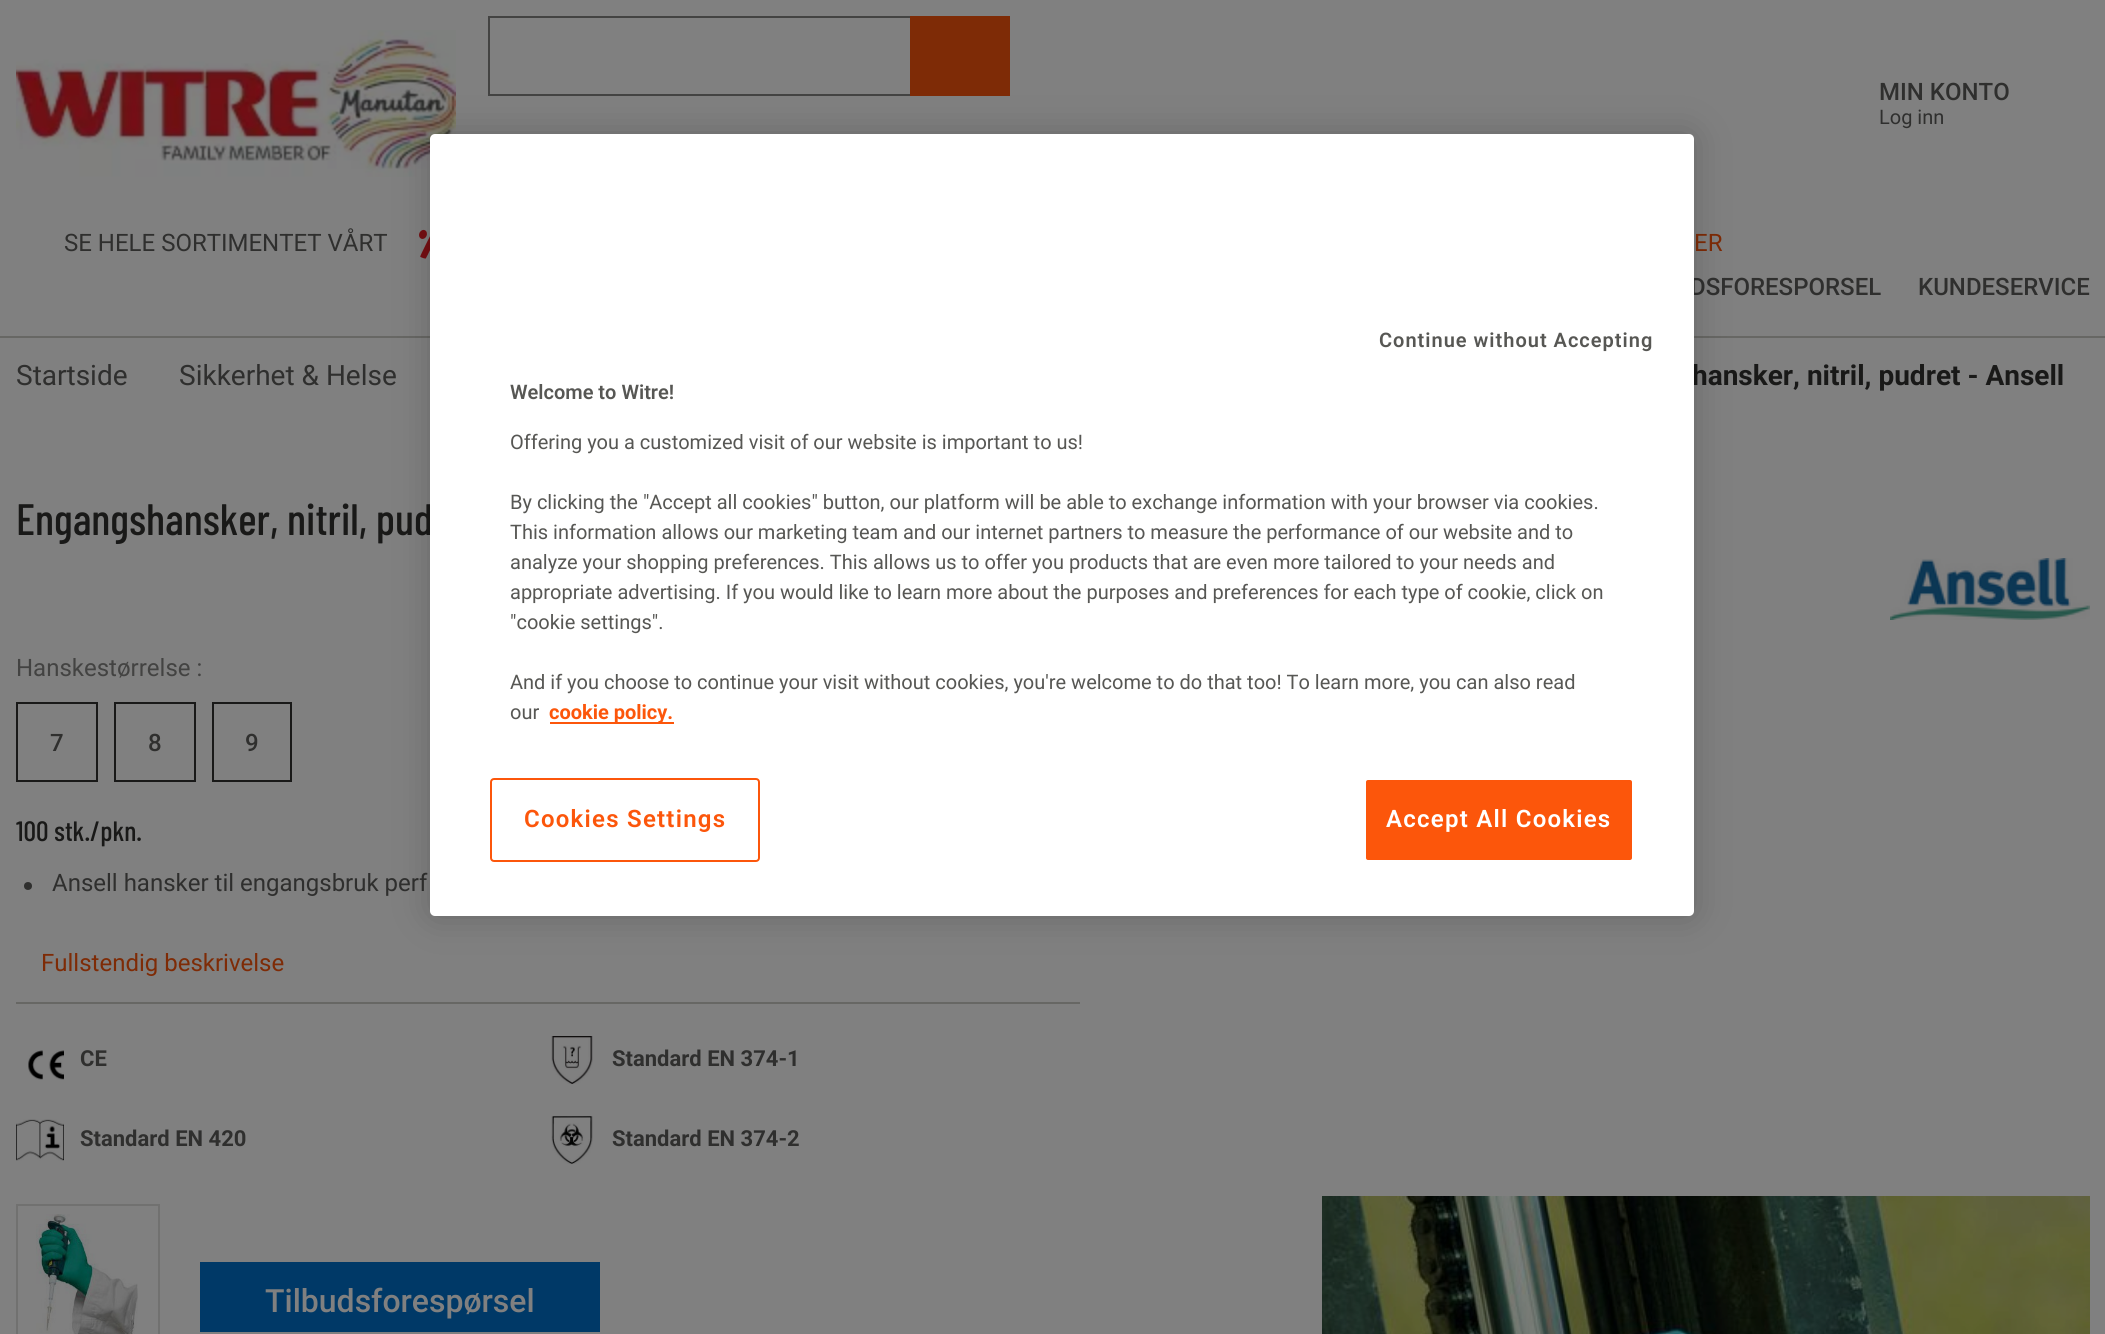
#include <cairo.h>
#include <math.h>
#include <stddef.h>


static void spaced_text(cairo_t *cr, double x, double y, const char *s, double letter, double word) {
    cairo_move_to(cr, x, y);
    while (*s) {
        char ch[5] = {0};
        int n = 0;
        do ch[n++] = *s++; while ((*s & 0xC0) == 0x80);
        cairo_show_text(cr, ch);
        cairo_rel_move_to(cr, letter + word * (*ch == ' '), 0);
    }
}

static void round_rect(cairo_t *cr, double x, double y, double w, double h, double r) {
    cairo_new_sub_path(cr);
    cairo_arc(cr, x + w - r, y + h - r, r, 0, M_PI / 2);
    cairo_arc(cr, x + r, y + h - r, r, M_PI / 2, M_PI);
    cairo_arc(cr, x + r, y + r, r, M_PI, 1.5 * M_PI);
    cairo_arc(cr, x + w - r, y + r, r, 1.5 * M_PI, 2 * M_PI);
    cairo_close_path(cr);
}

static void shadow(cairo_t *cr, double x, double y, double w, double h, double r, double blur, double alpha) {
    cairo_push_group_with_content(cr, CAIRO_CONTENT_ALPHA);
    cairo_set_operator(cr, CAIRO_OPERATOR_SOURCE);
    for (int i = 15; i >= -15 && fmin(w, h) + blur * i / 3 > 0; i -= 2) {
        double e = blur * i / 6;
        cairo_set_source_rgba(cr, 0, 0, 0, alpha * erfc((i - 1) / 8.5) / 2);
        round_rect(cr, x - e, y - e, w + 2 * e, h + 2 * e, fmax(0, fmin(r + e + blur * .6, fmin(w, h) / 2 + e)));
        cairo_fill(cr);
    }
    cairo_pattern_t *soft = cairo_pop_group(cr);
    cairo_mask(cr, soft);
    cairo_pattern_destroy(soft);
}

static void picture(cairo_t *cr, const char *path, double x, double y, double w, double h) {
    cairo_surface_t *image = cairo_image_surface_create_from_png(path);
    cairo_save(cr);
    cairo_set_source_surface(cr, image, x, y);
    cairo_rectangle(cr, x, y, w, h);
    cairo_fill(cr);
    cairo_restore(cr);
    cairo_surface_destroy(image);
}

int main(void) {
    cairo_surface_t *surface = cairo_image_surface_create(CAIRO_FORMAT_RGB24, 2105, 1334);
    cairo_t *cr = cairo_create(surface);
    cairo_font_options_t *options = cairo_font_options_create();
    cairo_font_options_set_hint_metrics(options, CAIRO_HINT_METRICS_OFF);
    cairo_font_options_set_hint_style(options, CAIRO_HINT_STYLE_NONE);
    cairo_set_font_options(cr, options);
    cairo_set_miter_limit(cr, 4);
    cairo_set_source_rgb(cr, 0.502, 0.502, 0.502);
    cairo_paint(cr);
    cairo_set_source_rgb(cr, 0.404, 0.404, 0.392);
    cairo_rectangle(cr, 0, 336, 2105, 2);
    cairo_fill(cr);
    picture(cr, "img1.png", 16, 30, 440, 147);
    cairo_set_source_rgb(cr, 0.263, 0.263, 0.259);
    cairo_rectangle(cr, 488, 16, 422, 2);
    cairo_fill(cr);
    cairo_rectangle(cr, 488, 94, 422, 2);
    cairo_fill(cr);
    cairo_rectangle(cr, 488, 16, 2, 80);
    cairo_fill(cr);
    cairo_set_source_rgb(cr, 0.494, 0.169, 0.024);
    cairo_rectangle(cr, 910, 16, 100, 80);
    cairo_fill(cr);
    cairo_select_font_face(cr, "Roboto Medium", CAIRO_FONT_SLANT_NORMAL, CAIRO_FONT_WEIGHT_NORMAL);
    cairo_set_font_size(cr, 24);
    cairo_set_source_rgb(cr, 0.184, 0.184, 0.18);
    cairo_move_to(cr, 1879, 100);
    cairo_show_text(cr, "MIN KONTO");
    cairo_select_font_face(cr, "Roboto", CAIRO_FONT_SLANT_NORMAL, CAIRO_FONT_WEIGHT_NORMAL);
    cairo_set_font_size(cr, 20);
    cairo_move_to(cr, 1879, 124);
    cairo_show_text(cr, "Log inn");
    cairo_set_font_size(cr, 24);
    cairo_move_to(cr, 64, 251);
    cairo_show_text(cr, "SE HELE SORTIMENTET VÅRT");
    picture(cr, "img2.png", 419, 229, 11, 30);
    cairo_set_source_rgb(cr, 0.494, 0.169, 0.024);
    cairo_move_to(cr, 1694, 251);
    cairo_show_text(cr, "ER");
    cairo_select_font_face(cr, "Roboto Medium", CAIRO_FONT_SLANT_NORMAL, CAIRO_FONT_WEIGHT_NORMAL);
    cairo_set_source_rgb(cr, 0.184, 0.184, 0.18);
    cairo_move_to(cr, 1690, 295);
    cairo_show_text(cr, "DSFORESPORSEL");
    cairo_move_to(cr, 1918, 295);
    cairo_show_text(cr, "KUNDESERVICE");
    cairo_select_font_face(cr, "Roboto", CAIRO_FONT_SLANT_NORMAL, CAIRO_FONT_WEIGHT_NORMAL);
    cairo_set_font_size(cr, 28);
    cairo_move_to(cr, 16, 385);
    cairo_show_text(cr, "Startside");
    cairo_move_to(cr, 179, 385);
    cairo_show_text(cr, "Sikkerhet & Helse");
    cairo_select_font_face(cr, "Roboto", CAIRO_FONT_SLANT_NORMAL, CAIRO_FONT_WEIGHT_BOLD);
    cairo_set_source_rgb(cr, 0.098, 0.098, 0.094);
    cairo_move_to(cr, 1692, 385);
    cairo_show_text(cr, "hansker, nitril, pudret - Ansell");
    cairo_select_font_face(cr, "Barlow Condensed Medium", CAIRO_FONT_SLANT_NORMAL, CAIRO_FONT_WEIGHT_NORMAL);
    cairo_set_font_size(cr, 44);
    cairo_move_to(cr, 16, 535);
    cairo_show_text(cr, "Engangshansker, nitril, pud");
    picture(cr, "img3.png", 1890, 558, 200, 62);
    cairo_select_font_face(cr, "Roboto", CAIRO_FONT_SLANT_NORMAL, CAIRO_FONT_WEIGHT_NORMAL);
    cairo_set_font_size(cr, 24);
    cairo_set_source_rgb(cr, 0.263, 0.263, 0.259);
    cairo_move_to(cr, 16, 676);
    cairo_show_text(cr, "Hanskestørrelse :");
    cairo_rectangle(cr, 17, 703, 80, 78);
    cairo_set_source_rgb(cr, 0.098, 0.098, 0.094);
    cairo_stroke(cr);
    cairo_select_font_face(cr, "Roboto Medium", CAIRO_FONT_SLANT_NORMAL, CAIRO_FONT_WEIGHT_NORMAL);
    cairo_set_source_rgb(cr, 0.184, 0.184, 0.18);
    cairo_move_to(cr, 50, 751);
    cairo_show_text(cr, "7");
    cairo_rectangle(cr, 115, 703, 80, 78);
    cairo_set_source_rgb(cr, 0.098, 0.098, 0.094);
    cairo_stroke(cr);
    cairo_set_source_rgb(cr, 0.184, 0.184, 0.18);
    cairo_move_to(cr, 148, 751);
    cairo_show_text(cr, "8");
    cairo_rectangle(cr, 213, 703, 78, 78);
    cairo_set_source_rgb(cr, 0.098, 0.098, 0.094);
    cairo_stroke(cr);
    cairo_set_source_rgb(cr, 0.184, 0.184, 0.18);
    cairo_move_to(cr, 245, 751);
    cairo_show_text(cr, "9");
    cairo_select_font_face(cr, "Barlow Condensed Medium", CAIRO_FONT_SLANT_NORMAL, CAIRO_FONT_WEIGHT_NORMAL);
    cairo_set_font_size(cr, 28);
    cairo_set_source_rgb(cr, 0.098, 0.098, 0.094);
    cairo_move_to(cr, 16, 841);
    cairo_show_text(cr, "100 stk./pkn.");
    cairo_set_source_rgb(cr, 0.184, 0.184, 0.18);
    cairo_new_path(cr);
    cairo_arc(cr, 28, 886, 4, 0, 2 * M_PI);
    cairo_fill(cr);
    cairo_select_font_face(cr, "Roboto", CAIRO_FONT_SLANT_NORMAL, CAIRO_FONT_WEIGHT_NORMAL);
    cairo_set_font_size(cr, 24);
    cairo_move_to(cr, 52, 891);
    cairo_show_text(cr, "Ansell hansker til engangsbruk perf");
    cairo_set_source_rgb(cr, 0.494, 0.169, 0.024);
    cairo_move_to(cr, 41, 971);
    cairo_show_text(cr, "Fullstendig beskrivelse");
    cairo_set_source_rgb(cr, 0.404, 0.404, 0.392);
    cairo_rectangle(cr, 16, 1002, 1064, 2);
    cairo_fill(cr);
    picture(cr, "img4.png", 28, 1050, 36, 30);
    cairo_select_font_face(cr, "Roboto", CAIRO_FONT_SLANT_NORMAL, CAIRO_FONT_WEIGHT_BOLD);
    cairo_set_font_size(cr, 22);
    cairo_set_source_rgb(cr, 0.184, 0.184, 0.18);
    cairo_move_to(cr, 80, 1066);
    cairo_show_text(cr, "CE");
    picture(cr, "img5.png", 551, 1036, 42, 48);
    cairo_move_to(cr, 612, 1066);
    cairo_show_text(cr, "Standard EN 374-1");
    picture(cr, "img6.png", 16, 1119, 48, 42);
    cairo_move_to(cr, 80, 1146);
    cairo_show_text(cr, "Standard EN 420");
    picture(cr, "img7.png", 551, 1116, 42, 48);
    cairo_move_to(cr, 612, 1146);
    cairo_show_text(cr, "Standard EN 374-2");
    cairo_rectangle(cr, 17, 1205, 142, 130);
    cairo_set_source_rgb(cr, 0.443, 0.443, 0.439);
    cairo_stroke(cr);
    picture(cr, "img8.png", 36, 1214, 102, 120);
    picture(cr, "img9.png", 1322, 1196, 768, 138);
    cairo_set_source_rgb(cr, 0, 0.224, 0.404);
    cairo_rectangle(cr, 200, 1262, 400, 70);
    cairo_fill(cr);
    cairo_select_font_face(cr, "Roboto Medium", CAIRO_FONT_SLANT_NORMAL, CAIRO_FONT_WEIGHT_NORMAL);
    cairo_set_font_size(cr, 32);
    cairo_set_source_rgb(cr, 0.502, 0.502, 0.502);
    cairo_move_to(cr, 265, 1312);
    cairo_show_text(cr, "Tilbudsforespørsel");
    cairo_set_source_rgb(cr, 0, 0, 0);
    shadow(cr, 430, 134, 1264, 782, 5, 18, 0.2);
    cairo_set_source_rgb(cr, 1, 1, 1);
    round_rect(cr, 430, 134, 1264, 782, 5);
    cairo_fill(cr);
    cairo_select_font_face(cr, "Roboto SemiBold", CAIRO_FONT_SLANT_NORMAL, CAIRO_FONT_WEIGHT_NORMAL);
    cairo_set_font_size(cr, 20);
    cairo_set_source_rgb(cr, 0.341, 0.341, 0.329);
    spaced_text(cr, 1379, 347, "Continue without Accepting", 1, 0);
    cairo_move_to(cr, 510, 399);
    cairo_show_text(cr, "Welcome to Witre!");
    cairo_select_font_face(cr, "Roboto", CAIRO_FONT_SLANT_NORMAL, CAIRO_FONT_WEIGHT_NORMAL);
    cairo_move_to(cr, 510, 449);
    cairo_show_text(cr, "Offering you a customized visit of our website is important to us!");
    cairo_move_to(cr, 510, 509);
    cairo_show_text(cr, "By clicking the \"Accept all cookies\" button, our platform will be able to exchange information with your browser via cookies.");
    cairo_move_to(cr, 510, 539);
    cairo_show_text(cr, "This information allows our marketing team and our internet partners to measure the performance of our website and to");
    cairo_move_to(cr, 510, 569);
    cairo_show_text(cr, "analyze your shopping preferences. This allows us to offer you products that are even more tailored to your needs and");
    cairo_move_to(cr, 510, 599);
    cairo_show_text(cr, "appropriate advertising. If you would like to learn more about the purposes and preferences for each type of cookie, click on");
    cairo_move_to(cr, 510, 629);
    cairo_show_text(cr, "\"cookie settings\".");
    cairo_move_to(cr, 510, 689);
    cairo_show_text(cr, "And if you choose to continue your visit without cookies, you're welcome to do that too! To learn more, you can also read");
    cairo_move_to(cr, 510, 719);
    cairo_show_text(cr, "our");
    cairo_set_source_rgb(cr, 0.988, 0.337, 0.043);
    cairo_rectangle(cr, 550, 722, 124, 2);
    cairo_fill(cr);
    cairo_select_font_face(cr, "Roboto", CAIRO_FONT_SLANT_NORMAL, CAIRO_FONT_WEIGHT_BOLD);
    cairo_move_to(cr, 549, 719);
    cairo_show_text(cr, "cookie policy.");
    round_rect(cr, 491, 779, 268, 82, 3);
    cairo_stroke(cr);
    cairo_select_font_face(cr, "Roboto SemiBold", CAIRO_FONT_SLANT_NORMAL, CAIRO_FONT_WEIGHT_NORMAL);
    cairo_set_font_size(cr, 24);
    spaced_text(cr, 524, 827, "Cookies Settings", 1.25, 0);
    round_rect(cr, 1365, 779, 268, 82, 3);
    cairo_fill_preserve(cr);
    cairo_set_source_rgb(cr, 1, 1, 1);
    cairo_stroke(cr);
    spaced_text(cr, 1386, 827, "Accept All Cookies", 1.25, 0);
    cairo_surface_write_to_png(surface, "page.png");
    cairo_font_options_destroy(options);
    cairo_destroy(cr);
    cairo_surface_destroy(surface);
    return 0;
}
